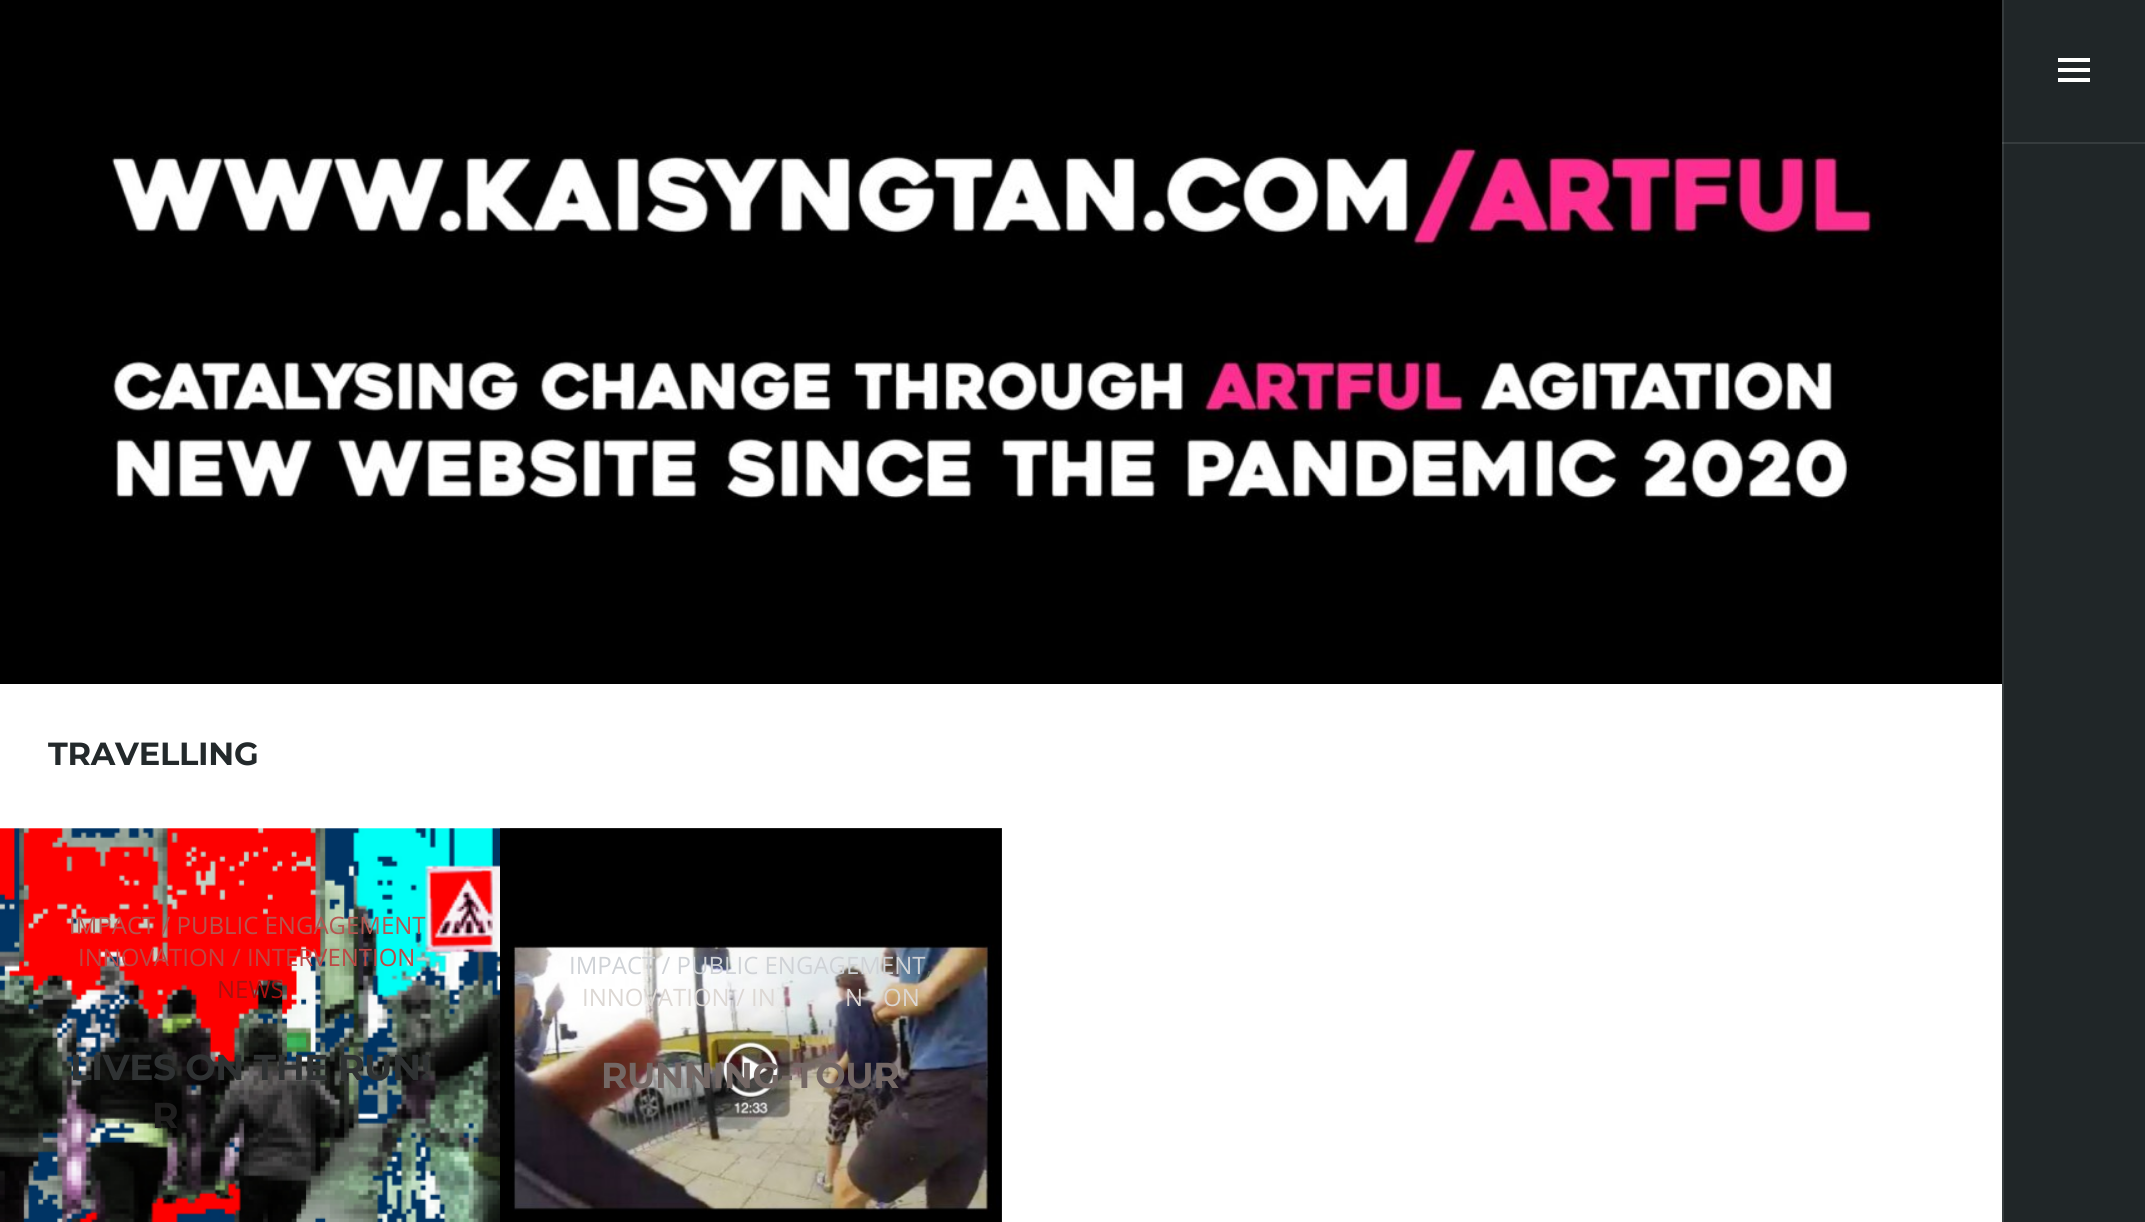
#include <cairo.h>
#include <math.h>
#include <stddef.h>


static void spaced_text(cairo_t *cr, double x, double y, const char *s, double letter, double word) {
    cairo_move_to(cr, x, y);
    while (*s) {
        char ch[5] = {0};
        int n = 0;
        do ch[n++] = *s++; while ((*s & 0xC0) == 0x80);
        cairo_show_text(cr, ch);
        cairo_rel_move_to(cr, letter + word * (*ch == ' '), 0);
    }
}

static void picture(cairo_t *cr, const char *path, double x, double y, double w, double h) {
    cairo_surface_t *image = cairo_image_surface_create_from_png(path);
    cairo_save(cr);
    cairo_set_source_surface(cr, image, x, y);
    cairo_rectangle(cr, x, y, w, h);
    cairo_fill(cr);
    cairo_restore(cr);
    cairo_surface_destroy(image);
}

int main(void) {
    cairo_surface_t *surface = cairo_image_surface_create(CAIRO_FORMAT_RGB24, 2145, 1222);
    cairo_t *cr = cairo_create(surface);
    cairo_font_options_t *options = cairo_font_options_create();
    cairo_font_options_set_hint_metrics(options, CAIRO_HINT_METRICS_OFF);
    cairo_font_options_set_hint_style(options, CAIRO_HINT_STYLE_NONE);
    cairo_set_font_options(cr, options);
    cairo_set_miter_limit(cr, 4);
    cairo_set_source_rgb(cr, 1, 1, 1);
    cairo_paint(cr);
    picture(cr, "img1.png", 0, 0, 2002, 684);
    cairo_set_source_rgb(cr, 0.125, 0.149, 0.157);
    cairo_rectangle(cr, 2004, 0, 141, 1222);
    cairo_fill(cr);
    picture(cr, "img2.png", 2058, 58, 32, 24);
    cairo_select_font_face(cr, "Montserrat", CAIRO_FONT_SLANT_NORMAL, CAIRO_FONT_WEIGHT_BOLD);
    cairo_set_font_size(cr, 32);
    cairo_set_source_rgb(cr, 0.137, 0.161, 0.169);
    spaced_text(cr, 48, 765, "TRAVELLING", -0.25, 0);
    picture(cr, "img3.png", 0, 828, 500, 394);
    cairo_select_font_face(cr, "Open Sans", CAIRO_FONT_SLANT_NORMAL, CAIRO_FONT_WEIGHT_NORMAL);
    cairo_set_font_size(cr, 24);
    cairo_set_source_rgb(cr, 0.71, 0.337, 0.314);
    cairo_move_to(cr, 69, 934);
    cairo_show_text(cr, "IMPACT / PUBLIC ENGAGEMENT");
    cairo_set_source_rgb(cr, 0.741, 0.282, 0.267);
    cairo_move_to(cr, 78, 966);
    cairo_show_text(cr, "INNOVATION / INTERVENTION");
    cairo_set_source_rgb(cr, 0.659, 0.067, 0.063);
    cairo_move_to(cr, 217, 998);
    cairo_show_text(cr, "NEWS");
    cairo_select_font_face(cr, "Montserrat", CAIRO_FONT_SLANT_NORMAL, CAIRO_FONT_WEIGHT_BOLD);
    cairo_set_font_size(cr, 36);
    cairo_set_source_rgb(cr, 0.184, 0.196, 0.2);
    spaced_text(cr, 70, 1080, "LIVES ON THE RUN!", -0.4, 0);
    cairo_set_source_rgb(cr, 0.125, 0.122, 0.122);
    spaced_text(cr, 152, 1128, "R", -0.4, 0);
    picture(cr, "img4.png", 500, 828, 502, 394);
    cairo_select_font_face(cr, "Open Sans", CAIRO_FONT_SLANT_NORMAL, CAIRO_FONT_WEIGHT_NORMAL);
    cairo_set_font_size(cr, 24);
    cairo_set_source_rgb(cr, 0.812, 0.824, 0.839);
    cairo_move_to(cr, 569, 974);
    cairo_show_text(cr, "IMPACT / PUBLIC ENGAGEMENT");
    cairo_set_source_rgb(cr, 0.353, 0.38, 0.345);
    cairo_move_to(cr, 926, 974);
    cairo_show_text(cr, ",");
    cairo_set_source_rgb(cr, 0.863, 0.843, 0.827);
    cairo_move_to(cr, 582, 1006);
    cairo_show_text(cr, "INNOVATION / IN");
    cairo_move_to(cr, 845, 1006);
    cairo_show_text(cr, "N");
    cairo_move_to(cr, 883, 1006);
    cairo_show_text(cr, "ON");
    cairo_select_font_face(cr, "Montserrat", CAIRO_FONT_SLANT_NORMAL, CAIRO_FONT_WEIGHT_BOLD);
    cairo_set_font_size(cr, 36);
    cairo_set_source_rgb(cr, 0.455, 0.408, 0.396);
    spaced_text(cr, 601, 1088, "RUNNING-TOUR", -0.4, 0);
    cairo_set_source_rgb(cr, 0.212, 0.235, 0.243);
    cairo_rectangle(cr, 2002, 142, 143, 2);
    cairo_fill(cr);
    cairo_rectangle(cr, 2002, 0, 2, 1222);
    cairo_fill(cr);
    cairo_set_source_rgb(cr, 0.29, 0.314, 0.318);
    cairo_rectangle(cr, 2002, 142, 2, 2);
    cairo_fill(cr);
    cairo_surface_write_to_png(surface, "page.png");
    cairo_font_options_destroy(options);
    cairo_destroy(cr);
    cairo_surface_destroy(surface);
    return 0;
}
